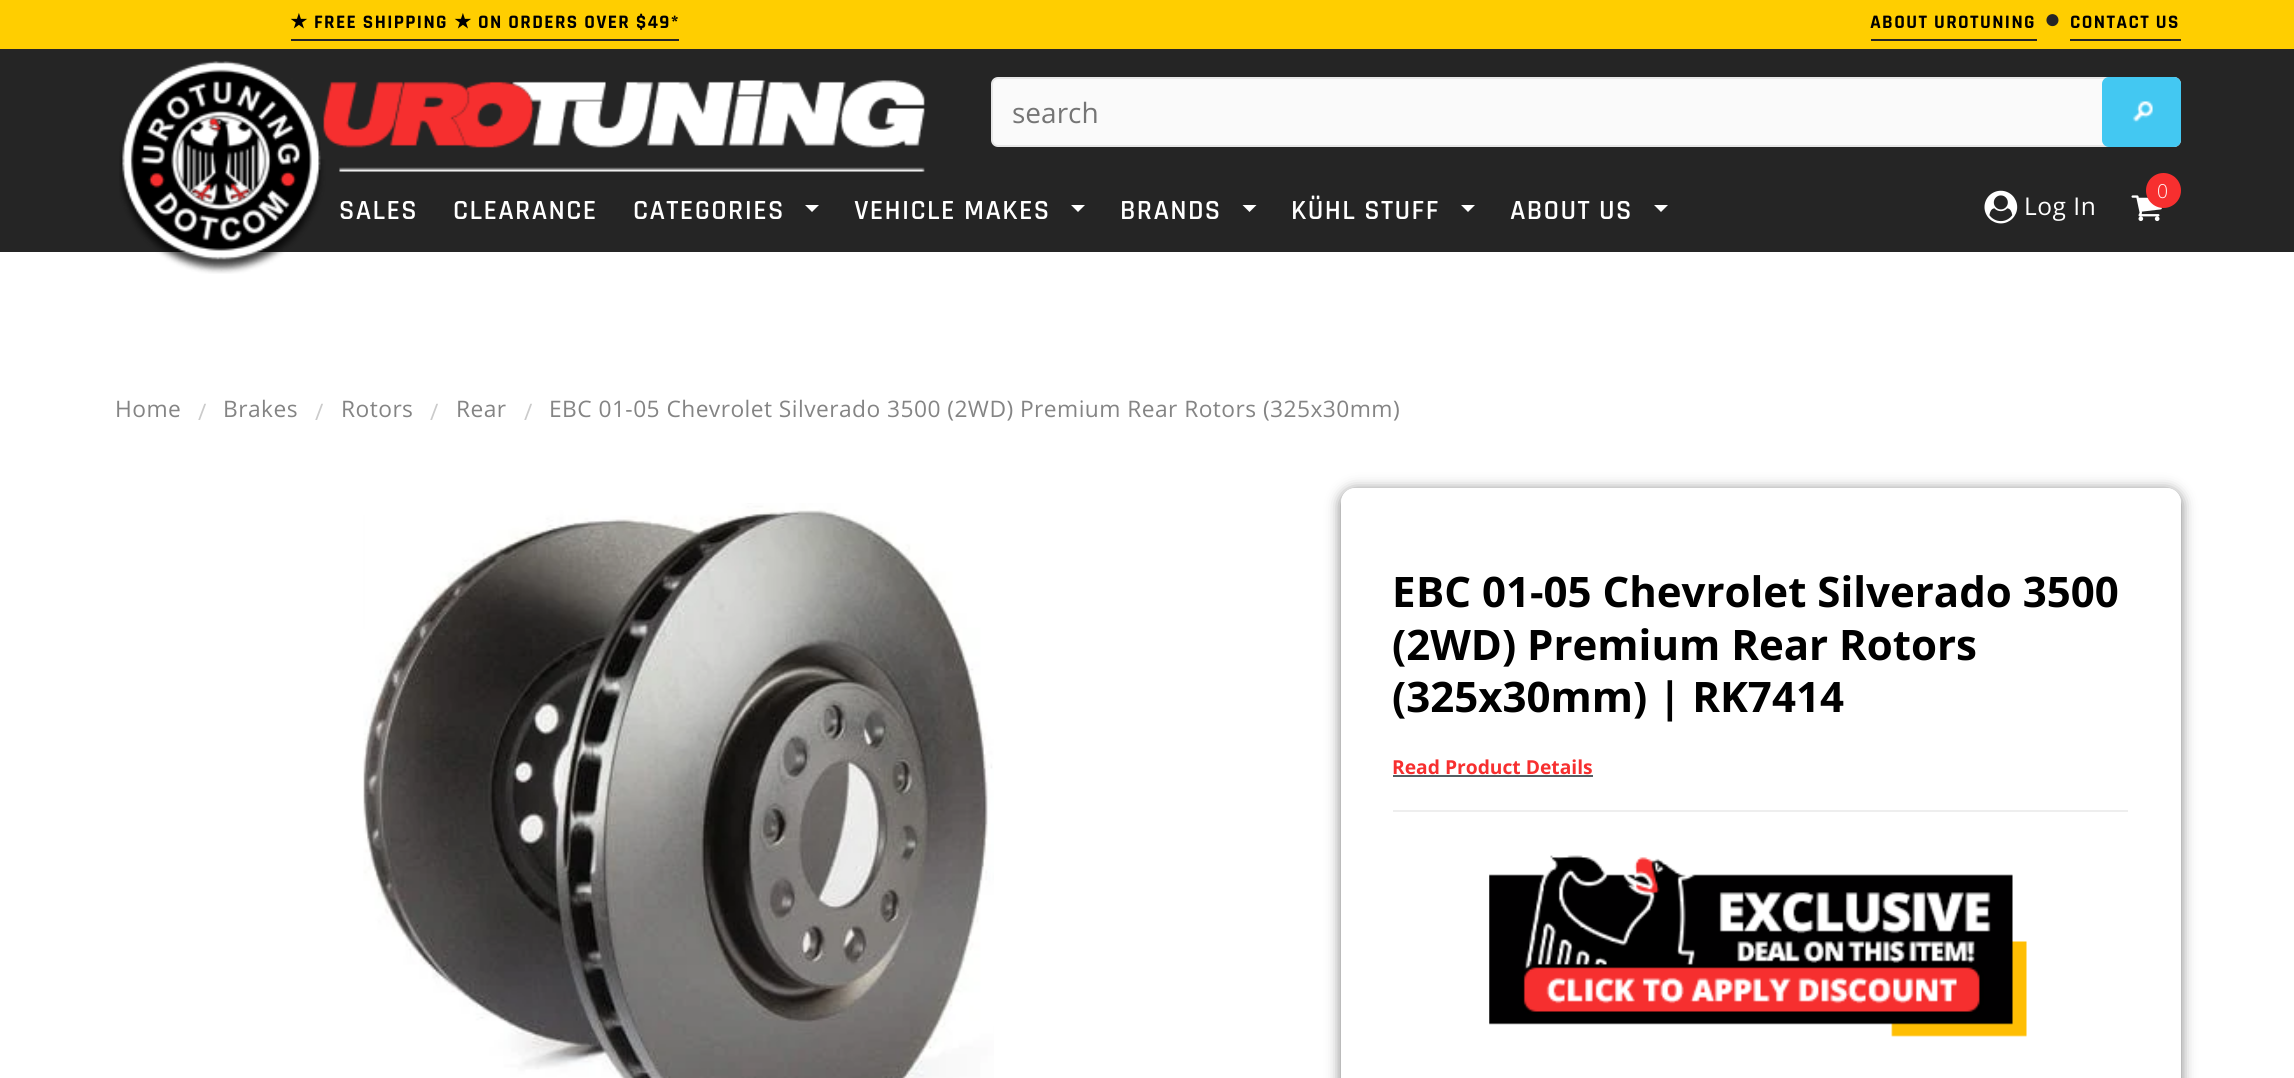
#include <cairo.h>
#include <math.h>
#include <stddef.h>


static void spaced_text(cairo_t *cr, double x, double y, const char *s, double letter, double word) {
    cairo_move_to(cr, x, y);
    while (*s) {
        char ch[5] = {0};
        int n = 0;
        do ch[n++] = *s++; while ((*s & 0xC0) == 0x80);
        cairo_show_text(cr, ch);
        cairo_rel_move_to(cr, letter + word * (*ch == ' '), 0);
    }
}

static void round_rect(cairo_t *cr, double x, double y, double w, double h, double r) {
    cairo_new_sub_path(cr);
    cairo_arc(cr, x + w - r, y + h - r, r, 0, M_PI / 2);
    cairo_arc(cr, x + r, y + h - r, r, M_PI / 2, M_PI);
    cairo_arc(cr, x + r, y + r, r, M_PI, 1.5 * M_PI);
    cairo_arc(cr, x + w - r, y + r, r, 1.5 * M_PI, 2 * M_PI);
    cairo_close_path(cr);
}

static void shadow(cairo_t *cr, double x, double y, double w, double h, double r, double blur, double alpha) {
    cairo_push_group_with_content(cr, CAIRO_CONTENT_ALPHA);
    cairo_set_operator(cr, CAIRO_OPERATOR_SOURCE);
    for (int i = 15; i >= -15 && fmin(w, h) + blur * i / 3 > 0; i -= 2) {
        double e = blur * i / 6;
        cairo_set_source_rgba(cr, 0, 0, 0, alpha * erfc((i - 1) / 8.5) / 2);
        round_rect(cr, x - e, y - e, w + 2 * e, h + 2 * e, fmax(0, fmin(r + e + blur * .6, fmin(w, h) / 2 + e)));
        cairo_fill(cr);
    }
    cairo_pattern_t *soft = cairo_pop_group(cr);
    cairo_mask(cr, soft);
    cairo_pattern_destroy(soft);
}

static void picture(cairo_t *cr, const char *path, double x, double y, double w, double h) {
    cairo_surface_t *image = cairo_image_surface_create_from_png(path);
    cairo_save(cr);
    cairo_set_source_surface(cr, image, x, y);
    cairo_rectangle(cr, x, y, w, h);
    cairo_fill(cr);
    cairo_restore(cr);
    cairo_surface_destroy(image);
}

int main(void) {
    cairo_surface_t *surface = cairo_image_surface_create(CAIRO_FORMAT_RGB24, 2294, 1078);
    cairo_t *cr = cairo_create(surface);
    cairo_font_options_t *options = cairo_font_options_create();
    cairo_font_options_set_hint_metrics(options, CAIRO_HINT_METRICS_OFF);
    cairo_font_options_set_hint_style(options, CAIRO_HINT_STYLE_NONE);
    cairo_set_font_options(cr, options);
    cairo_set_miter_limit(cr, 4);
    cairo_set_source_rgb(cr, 1, 1, 1);
    cairo_paint(cr);
    cairo_set_source_rgb(cr, 1, 0.808, 0);
    cairo_rectangle(cr, 0, 0, 2294, 49);
    cairo_fill(cr);
    cairo_select_font_face(cr, "DejaVu Sans", CAIRO_FONT_SLANT_NORMAL, CAIRO_FONT_WEIGHT_BOLD);
    cairo_set_font_size(cr, 19.25);
    cairo_set_source_rgb(cr, 0, 0, 0);
    spaced_text(cr, 290, 28, "★", 1.4, 0);
    cairo_set_source_rgb(cr, 0.145, 0.145, 0.145);
    cairo_rectangle(cr, 291, 39, 388, 2);
    cairo_fill(cr);
    cairo_select_font_face(cr, "Rajdhani", CAIRO_FONT_SLANT_NORMAL, CAIRO_FONT_WEIGHT_BOLD);
    cairo_set_source_rgb(cr, 0, 0, 0);
    spaced_text(cr, 314, 28, "FREE SHIPPING", 1.4, 0);
    cairo_select_font_face(cr, "DejaVu Sans", CAIRO_FONT_SLANT_NORMAL, CAIRO_FONT_WEIGHT_BOLD);
    spaced_text(cr, 454, 28, "★", 1.4, 0);
    cairo_select_font_face(cr, "Rajdhani", CAIRO_FONT_SLANT_NORMAL, CAIRO_FONT_WEIGHT_BOLD);
    spaced_text(cr, 478, 28, "ON ORDERS OVER $49*", 1.4, 0);
    spaced_text(cr, 1870, 28, "ABOUT UROTUNING", 1.4, 0);
    cairo_set_source_rgb(cr, 0.145, 0.145, 0.145);
    cairo_rectangle(cr, 1871, 39, 166, 2);
    cairo_fill(cr);
    cairo_select_font_face(cr, "Liberation Serif", CAIRO_FONT_SLANT_NORMAL, CAIRO_FONT_WEIGHT_BOLD);
    cairo_set_font_size(cr, 28);
    spaced_text(cr, 2044, 28, "●", 1.4, 0);
    cairo_select_font_face(cr, "Rajdhani", CAIRO_FONT_SLANT_NORMAL, CAIRO_FONT_WEIGHT_BOLD);
    cairo_set_font_size(cr, 19.25);
    cairo_set_source_rgb(cr, 0, 0, 0);
    spaced_text(cr, 2070, 28, "CONTACT US", 1.4, 0);
    cairo_set_source_rgb(cr, 0.145, 0.145, 0.145);
    cairo_rectangle(cr, 2070, 39, 111, 2);
    cairo_fill(cr);
    cairo_rectangle(cr, 0, 49, 2294, 203);
    cairo_fill(cr);
    picture(cr, "img1.png", 119, 60, 806, 214);
    cairo_set_source_rgb(cr, 0.98, 0.98, 0.98);
    round_rect(cr, 992, 78, 1188, 68, 6);
    cairo_fill_preserve(cr);
    cairo_set_source_rgb(cr, 0.906, 0.906, 0.906);
    cairo_stroke(cr);
    cairo_select_font_face(cr, "Open Sans", CAIRO_FONT_SLANT_NORMAL, CAIRO_FONT_WEIGHT_NORMAL);
    cairo_set_font_size(cr, 28);
    cairo_set_source_rgb(cr, 0.459, 0.459, 0.459);
    cairo_move_to(cr, 1012, 123);
    cairo_show_text(cr, "search");
    cairo_set_source_rgb(cr, 0.263, 0.784, 0.949);
    round_rect(cr, 2102, 77, 79, 70, 7);
    cairo_fill(cr);
    picture(cr, "img2.png", 2132, 101, 21, 22);
    cairo_select_font_face(cr, "Rajdhani SemiBold", CAIRO_FONT_SLANT_NORMAL, CAIRO_FONT_WEIGHT_NORMAL);
    cairo_set_source_rgb(cr, 1, 1, 1);
    spaced_text(cr, 339, 219, "SALES", 1.4, 0);
    spaced_text(cr, 453, 219, "CLEARANCE", 1.4, 0);
    spaced_text(cr, 633, 219, "CATEGORIES", 1.4, 0);
    cairo_new_path(cr);
    cairo_move_to(cr, 805, 205);
    cairo_line_to(cr, 819, 205);
    cairo_line_to(cr, 812, 212);
    cairo_close_path(cr);
    cairo_fill(cr);
    spaced_text(cr, 854, 219, "VEHICLE MAKES", 1.4, 0);
    cairo_new_path(cr);
    cairo_move_to(cr, 1071, 205);
    cairo_line_to(cr, 1085, 205);
    cairo_line_to(cr, 1078, 212);
    cairo_close_path(cr);
    cairo_fill(cr);
    spaced_text(cr, 1120, 219, "BRANDS", 1.4, 0);
    cairo_new_path(cr);
    cairo_move_to(cr, 1242.5, 205);
    cairo_line_to(cr, 1256.5, 205);
    cairo_line_to(cr, 1249.5, 212);
    cairo_close_path(cr);
    cairo_fill(cr);
    spaced_text(cr, 1291, 219, "KÜHL STUFF", 1.4, 0);
    cairo_new_path(cr);
    cairo_move_to(cr, 1461, 205);
    cairo_line_to(cr, 1475, 205);
    cairo_line_to(cr, 1468, 212);
    cairo_close_path(cr);
    cairo_fill(cr);
    spaced_text(cr, 1510, 219, "ABOUT US", 1.4, 0);
    cairo_new_path(cr);
    cairo_move_to(cr, 1654, 205);
    cairo_line_to(cr, 1668, 205);
    cairo_line_to(cr, 1661, 212);
    cairo_close_path(cr);
    cairo_fill(cr);
    picture(cr, "img3.png", 2131, 195, 31, 27);
    cairo_set_source_rgb(cr, 0.965, 0.184, 0.184);
    cairo_arc(cr, 2163.5, 190.5, 17.5, 0, 2 * M_PI);
    cairo_fill(cr);
    cairo_select_font_face(cr, "Open Sans Light", CAIRO_FONT_SLANT_NORMAL, CAIRO_FONT_WEIGHT_NORMAL);
    cairo_set_font_size(cr, 19.25);
    cairo_set_source_rgb(cr, 1, 1, 1);
    spaced_text(cr, 2157, 198, "0", 0.5, 0);
    picture(cr, "img4.png", 1984, 190, 34, 34);
    cairo_select_font_face(cr, "Open Sans", CAIRO_FONT_SLANT_NORMAL, CAIRO_FONT_WEIGHT_NORMAL);
    cairo_set_font_size(cr, 24.5);
    spaced_text(cr, 2024, 215, "Log In", 0.5, 0);
    cairo_set_font_size(cr, 22.75);
    cairo_set_source_rgb(cr, 0.518, 0.518, 0.518);
    spaced_text(cr, 115, 417, "Home", 0.45, 0);
    cairo_set_source_rgb(cr, 0.796, 0.796, 0.796);
    spaced_text(cr, 198, 420, "/", 0.45, 0);
    cairo_set_source_rgb(cr, 0.518, 0.518, 0.518);
    spaced_text(cr, 223, 417, "Brakes", 0.45, 0);
    cairo_set_source_rgb(cr, 0.796, 0.796, 0.796);
    spaced_text(cr, 315, 420, "/", 0.45, 0);
    cairo_set_source_rgb(cr, 0.518, 0.518, 0.518);
    spaced_text(cr, 341, 417, "Rotors", 0.45, 0);
    cairo_set_source_rgb(cr, 0.796, 0.796, 0.796);
    spaced_text(cr, 430, 420, "/", 0.45, 0);
    cairo_set_source_rgb(cr, 0.518, 0.518, 0.518);
    spaced_text(cr, 456, 417, "Rear", 0.45, 0);
    cairo_set_source_rgb(cr, 0.796, 0.796, 0.796);
    spaced_text(cr, 524, 420, "/", 0.45, 0);
    cairo_set_source_rgb(cr, 0.518, 0.518, 0.518);
    spaced_text(cr, 549, 417, "EBC 01-05 Chevrolet Silverado 3500 (2WD) Premium Rear Rotors (325x30mm)", 0.45, 0);
    picture(cr, "img5.png", 363, 503, 631, 575);
    cairo_save(cr);
    cairo_set_fill_rule(cr, CAIRO_FILL_RULE_EVEN_ODD);
    cairo_new_path(cr);
    cairo_move_to(cr, 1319, 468);
    cairo_line_to(cr, 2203, 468);
    cairo_line_to(cr, 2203, 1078);
    cairo_line_to(cr, 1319, 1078);
    cairo_close_path(cr);
    cairo_move_to(cr, 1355, 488);
    cairo_line_to(cr, 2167, 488);
    cairo_curve_to(cr, 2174.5, 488, 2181, 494.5, 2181, 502);
    cairo_line_to(cr, 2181, 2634);
    cairo_curve_to(cr, 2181, 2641.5, 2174.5, 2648, 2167, 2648);
    cairo_line_to(cr, 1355, 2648);
    cairo_curve_to(cr, 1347.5, 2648, 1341, 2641.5, 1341, 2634);
    cairo_line_to(cr, 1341, 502);
    cairo_curve_to(cr, 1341, 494.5, 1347.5, 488, 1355, 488);
    cairo_close_path(cr);
    cairo_clip(cr);
    cairo_set_source_rgb(cr, 0.467, 0.467, 0.467);
    shadow(cr, 1341, 490, 840, 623, 14, 7, 1);
    cairo_restore(cr);
    cairo_select_font_face(cr, "Noto Sans", CAIRO_FONT_SLANT_NORMAL, CAIRO_FONT_WEIGHT_BOLD);
    cairo_set_font_size(cr, 42);
    cairo_set_source_rgb(cr, 0, 0, 0);
    cairo_move_to(cr, 1392, 607);
    cairo_show_text(cr, "E");
    cairo_select_font_face(cr, "Open Sans", CAIRO_FONT_SLANT_NORMAL, CAIRO_FONT_WEIGHT_BOLD);
    cairo_move_to(cr, 1416, 607);
    cairo_show_text(cr, "BC 01-05 Chevrolet Silverado 3500");
    cairo_move_to(cr, 1392, 660);
    cairo_show_text(cr, "(2WD) Premium Rear Rotors");
    cairo_move_to(cr, 1392, 712);
    cairo_show_text(cr, "(325x30mm) | RK7414");
    cairo_set_font_size(cr, 19.25);
    cairo_set_source_rgb(cr, 0.965, 0.184, 0.184);
    cairo_move_to(cr, 1392, 774);
    cairo_show_text(cr, "Read Product Details");
    cairo_set_source_rgb(cr, 0.325, 0.365, 0.384);
    cairo_rectangle(cr, 1393, 775, 200, 2);
    cairo_fill(cr);
    cairo_set_source_rgb(cr, 0.933, 0.933, 0.933);
    cairo_rectangle(cr, 1393, 810, 735, 2);
    cairo_fill(cr);
    picture(cr, "img6.png", 1489, 855, 538, 182);
    cairo_surface_write_to_png(surface, "page.png");
    cairo_font_options_destroy(options);
    cairo_destroy(cr);
    cairo_surface_destroy(surface);
    return 0;
}
